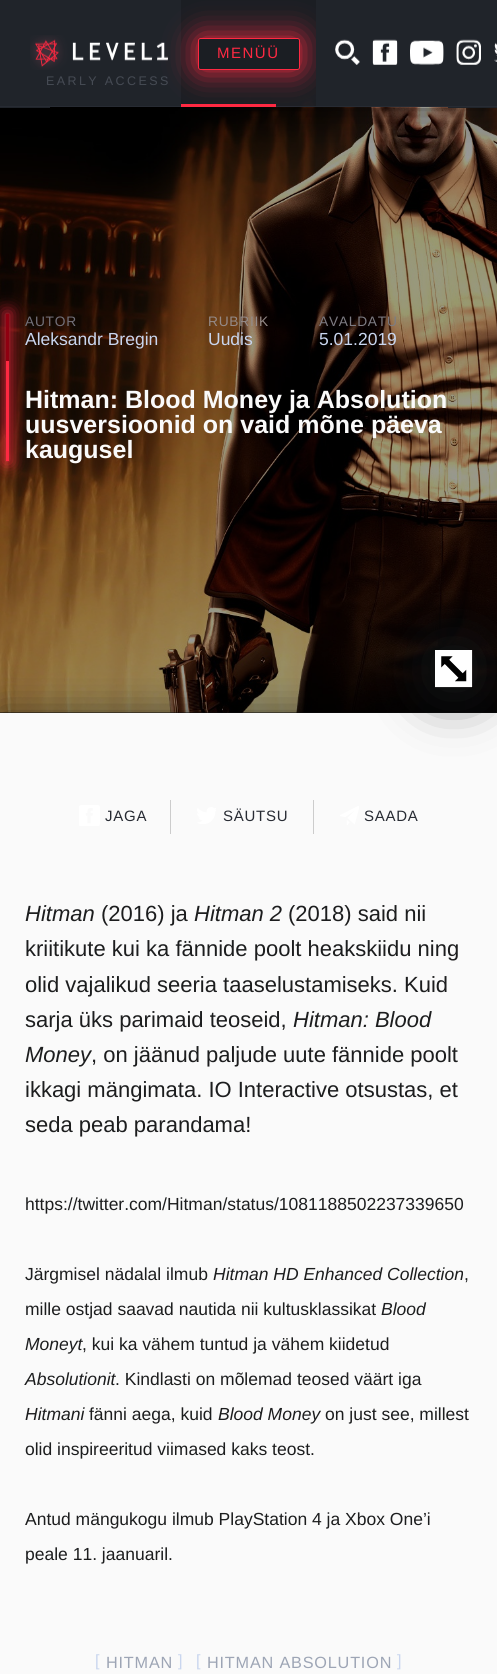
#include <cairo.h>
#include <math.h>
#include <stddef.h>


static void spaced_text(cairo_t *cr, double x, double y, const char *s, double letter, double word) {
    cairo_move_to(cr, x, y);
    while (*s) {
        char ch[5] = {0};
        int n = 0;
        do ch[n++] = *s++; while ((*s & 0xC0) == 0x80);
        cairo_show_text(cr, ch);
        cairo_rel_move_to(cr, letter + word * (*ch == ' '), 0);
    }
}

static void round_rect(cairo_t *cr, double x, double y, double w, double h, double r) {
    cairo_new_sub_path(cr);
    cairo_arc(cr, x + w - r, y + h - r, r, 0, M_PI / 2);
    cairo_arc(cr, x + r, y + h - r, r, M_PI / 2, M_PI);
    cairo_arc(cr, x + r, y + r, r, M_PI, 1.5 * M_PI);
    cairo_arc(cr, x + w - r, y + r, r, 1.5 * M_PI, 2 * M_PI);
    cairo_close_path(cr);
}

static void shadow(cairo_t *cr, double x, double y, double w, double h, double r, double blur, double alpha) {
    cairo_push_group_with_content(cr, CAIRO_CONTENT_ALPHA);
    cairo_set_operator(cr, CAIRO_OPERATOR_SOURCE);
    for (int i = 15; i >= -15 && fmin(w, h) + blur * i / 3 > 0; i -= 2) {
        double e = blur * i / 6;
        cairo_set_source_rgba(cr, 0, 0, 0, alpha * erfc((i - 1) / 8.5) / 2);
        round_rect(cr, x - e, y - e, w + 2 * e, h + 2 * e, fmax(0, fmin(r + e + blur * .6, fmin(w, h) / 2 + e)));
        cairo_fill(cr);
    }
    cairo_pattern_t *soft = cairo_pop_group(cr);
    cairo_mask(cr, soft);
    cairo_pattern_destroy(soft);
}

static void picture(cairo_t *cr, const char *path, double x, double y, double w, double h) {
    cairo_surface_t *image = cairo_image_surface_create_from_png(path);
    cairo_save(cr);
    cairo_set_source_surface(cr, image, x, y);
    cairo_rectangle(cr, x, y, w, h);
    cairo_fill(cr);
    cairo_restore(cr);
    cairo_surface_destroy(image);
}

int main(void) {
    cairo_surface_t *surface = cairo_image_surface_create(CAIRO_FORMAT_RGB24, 497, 1674);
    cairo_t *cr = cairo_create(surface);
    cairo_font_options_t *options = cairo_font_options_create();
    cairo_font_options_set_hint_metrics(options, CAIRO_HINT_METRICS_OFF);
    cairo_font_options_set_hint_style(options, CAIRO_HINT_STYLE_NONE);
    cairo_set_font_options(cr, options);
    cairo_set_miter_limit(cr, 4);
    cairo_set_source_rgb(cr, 0.067, 0.067, 0.071);
    cairo_paint(cr);
    picture(cr, "img7.png", 0, 0, 497, 713);
    cairo_save(cr);
    cairo_set_fill_rule(cr, CAIRO_FILL_RULE_EVEN_ODD);
    cairo_new_path(cr);
    cairo_move_to(cr, 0, 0);
    cairo_line_to(cr, 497, 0);
    cairo_line_to(cr, 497, 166);
    cairo_line_to(cr, 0, 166);
    cairo_close_path(cr);
    cairo_move_to(cr, 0, 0);
    cairo_line_to(cr, 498, 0);
    cairo_line_to(cr, 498, 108);
    cairo_line_to(cr, 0, 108);
    cairo_close_path(cr);
    cairo_clip(cr);
    cairo_set_source_rgb(cr, 0, 0, 0);
    shadow(cr, 0, 0, 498, 108, 0, 19, 0.5);
    cairo_restore(cr);
    cairo_set_source_rgb(cr, 0.125, 0.141, 0.165);
    cairo_rectangle(cr, 0, 0, 50, 108);
    cairo_fill(cr);
    cairo_rectangle(cr, 448, 107, 49, 1);
    cairo_fill(cr);
    cairo_set_source_rgb(cr, 0.153, 0.169, 0.2);
    cairo_rectangle(cr, 0, 106, 497, 1);
    cairo_fill(cr);
    cairo_set_source_rgba(cr, 0.125, 0.141, 0.165, 0.85);
    cairo_rectangle(cr, 181, 0, 135, 106);
    cairo_fill(cr);
    cairo_set_source_rgb(cr, 0.125, 0.141, 0.165);
    cairo_rectangle(cr, 50, 0, 131, 106);
    cairo_fill(cr);
    picture(cr, "img6.png", 30, 35, 138, 35);
    cairo_save(cr);
    cairo_set_fill_rule(cr, CAIRO_FILL_RULE_EVEN_ODD);
    cairo_new_path(cr);
    cairo_move_to(cr, 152, 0);
    cairo_line_to(cr, 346, 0);
    cairo_line_to(cr, 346, 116);
    cairo_line_to(cr, 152, 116);
    cairo_close_path(cr);
    cairo_move_to(cr, 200.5, 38);
    cairo_line_to(cr, 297.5, 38);
    cairo_curve_to(cr, 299, 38, 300, 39, 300, 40.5);
    cairo_line_to(cr, 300, 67.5);
    cairo_curve_to(cr, 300, 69, 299, 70, 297.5, 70);
    cairo_line_to(cr, 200.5, 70);
    cairo_curve_to(cr, 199, 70, 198, 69, 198, 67.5);
    cairo_line_to(cr, 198, 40.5);
    cairo_curve_to(cr, 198, 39, 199, 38, 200.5, 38);
    cairo_close_path(cr);
    cairo_clip(cr);
    cairo_set_source_rgb(cr, 1, 0.161, 0.259);
    shadow(cr, 198, 38, 102, 32, 2.5, 15, 1);
    cairo_restore(cr);
    round_rect(cr, 198.5, 38.5, 101, 31, 2);
    cairo_set_source_rgb(cr, 1, 0.161, 0.259);
    cairo_set_line_width(cr, 1);
    cairo_stroke(cr);
    cairo_select_font_face(cr, "Liberation Sans", CAIRO_FONT_SLANT_NORMAL, CAIRO_FONT_WEIGHT_NORMAL);
    cairo_set_font_size(cr, 15);
    spaced_text(cr, 217, 58, "MENÜÜ", 1.5, 0);
    cairo_set_source_rgb(cr, 0.125, 0.141, 0.165);
    cairo_rectangle(cr, 316, 0, 181, 106);
    cairo_fill(cr);
    picture(cr, "img1.png", 335, 39, 25, 26);
    picture(cr, "img2.png", 372, 39, 26, 26);
    picture(cr, "img3.png", 410, 40, 34, 25);
    picture(cr, "img4.png", 456, 39, 25, 26);
    picture(cr, "img5.png", 494, 42, 3, 20);
    cairo_set_font_size(cr, 12.5);
    cairo_set_source_rgb(cr, 0.275, 0.294, 0.329);
    spaced_text(cr, 46, 85, "EARLY ACCESS", 2.4, 0);
    cairo_set_source_rgb(cr, 1, 0.161, 0.259);
    cairo_rectangle(cr, 181, 104, 95, 3);
    cairo_fill(cr);
    cairo_set_source_rgb(cr, 1, 0.161, 0.259);
    shadow(cr, 6, 314, 3, 147, 0, 9, 1);
    cairo_set_source_rgb(cr, 1, 0.161, 0.259);
    cairo_rectangle(cr, 6, 361, 3, 100);
    cairo_fill(cr);
    cairo_set_source_rgb(cr, 0.561, 0, 0.067);
    cairo_rectangle(cr, 6, 314, 3, 47);
    cairo_fill(cr);
    cairo_set_font_size(cr, 13.75);
    cairo_set_source_rgb(cr, 0.447, 0.439, 0.475);
    spaced_text(cr, 25, 326, "AUTOR", 0.75, 0);
    cairo_set_font_size(cr, 17.5);
    cairo_set_source_rgb(cr, 0.788, 0.839, 0.937);
    cairo_move_to(cr, 25, 345);
    cairo_show_text(cr, "Aleksandr Bregin");
    cairo_set_font_size(cr, 13.75);
    cairo_set_source_rgb(cr, 0.58, 0.541, 0.533);
    spaced_text(cr, 208, 326, "RUBRIIK", 0.75, 0);
    cairo_set_font_size(cr, 17.5);
    cairo_set_source_rgb(cr, 0.788, 0.839, 0.937);
    cairo_move_to(cr, 208, 345);
    cairo_show_text(cr, "Uudis");
    cairo_set_font_size(cr, 13.75);
    cairo_set_source_rgb(cr, 0.49, 0.486, 0.514);
    spaced_text(cr, 319, 326, "AVALDATU", 0.75, 0);
    cairo_set_font_size(cr, 17.5);
    cairo_set_source_rgb(cr, 0.788, 0.839, 0.937);
    cairo_move_to(cr, 319, 345);
    cairo_show_text(cr, "5.01.2019");
    cairo_select_font_face(cr, "Liberation Sans", CAIRO_FONT_SLANT_NORMAL, CAIRO_FONT_WEIGHT_BOLD);
    cairo_set_font_size(cr, 25);
    cairo_set_source_rgb(cr, 0.98, 0.98, 0.98);
    cairo_move_to(cr, 25, 408);
    cairo_show_text(cr, "Hitman: Blood Money ja Absolution");
    cairo_move_to(cr, 25, 433);
    cairo_show_text(cr, "uusversioonid on vaid mõne päeva");
    cairo_move_to(cr, 25, 458);
    cairo_show_text(cr, "kaugusel");
    cairo_set_source_rgb(cr, 0, 0, 0);
    shadow(cr, 0, 713, 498, 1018, 0, 19, 0.5);
    cairo_set_source_rgb(cr, 0.98, 0.98, 0.98);
    cairo_rectangle(cr, 0, 713, 497, 961);
    cairo_fill(cr);
    cairo_save(cr);
    cairo_set_fill_rule(cr, CAIRO_FILL_RULE_EVEN_ODD);
    cairo_new_path(cr);
    cairo_move_to(cr, 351, 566);
    cairo_line_to(cr, 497, 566);
    cairo_line_to(cr, 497, 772);
    cairo_line_to(cr, 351, 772);
    cairo_close_path(cr);
    cairo_move_to(cr, 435, 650);
    cairo_line_to(cr, 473, 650);
    cairo_line_to(cr, 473, 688);
    cairo_line_to(cr, 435, 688);
    cairo_close_path(cr);
    cairo_clip(cr);
    cairo_set_source_rgb(cr, 0.11, 0.114, 0.118);
    shadow(cr, 435, 650, 38, 38, 0, 27.5, 1);
    cairo_restore(cr);
    picture(cr, "img8.png", 435, 650, 38, 38);
    picture(cr, "img9.png", 79, 805, 21, 21);
    cairo_select_font_face(cr, "Liberation Sans", CAIRO_FONT_SLANT_NORMAL, CAIRO_FONT_WEIGHT_NORMAL);
    cairo_set_font_size(cr, 15);
    cairo_set_source_rgb(cr, 0.153, 0.169, 0.2);
    spaced_text(cr, 105, 821, "JAGA", 0.75, 0);
    cairo_set_source_rgb(cr, 0.8, 0.8, 0.8);
    cairo_rectangle(cr, 170, 800, 1, 34);
    cairo_fill(cr);
    picture(cr, "img10.png", 197, 807, 19, 17);
    cairo_set_source_rgb(cr, 0.153, 0.169, 0.2);
    spaced_text(cr, 223, 821, "SÄUTSU", 0.75, 0);
    cairo_set_source_rgb(cr, 0.8, 0.8, 0.8);
    cairo_rectangle(cr, 313, 800, 1, 34);
    cairo_fill(cr);
    picture(cr, "img11.png", 340, 806, 19, 19);
    cairo_set_source_rgb(cr, 0.153, 0.169, 0.2);
    spaced_text(cr, 364, 821, "SAADA", 0.75, 0);
    cairo_select_font_face(cr, "Liberation Sans", CAIRO_FONT_SLANT_ITALIC, CAIRO_FONT_WEIGHT_NORMAL);
    cairo_set_font_size(cr, 22);
    cairo_set_source_rgb(cr, 0.11, 0.114, 0.118);
    cairo_move_to(cr, 25, 921);
    cairo_show_text(cr, "Hitman");
    cairo_select_font_face(cr, "Liberation Sans", CAIRO_FONT_SLANT_NORMAL, CAIRO_FONT_WEIGHT_NORMAL);
    cairo_move_to(cr, 101, 921);
    cairo_show_text(cr, "(2016) ja");
    cairo_select_font_face(cr, "Liberation Sans", CAIRO_FONT_SLANT_ITALIC, CAIRO_FONT_WEIGHT_NORMAL);
    cairo_move_to(cr, 194, 921);
    cairo_show_text(cr, "Hitman 2");
    cairo_select_font_face(cr, "Liberation Sans", CAIRO_FONT_SLANT_NORMAL, CAIRO_FONT_WEIGHT_NORMAL);
    cairo_move_to(cr, 288, 921);
    cairo_show_text(cr, "(2018) said nii");
    cairo_move_to(cr, 25, 956);
    cairo_show_text(cr, "kriitikute kui ka fännide poolt heakskiidu ning");
    cairo_move_to(cr, 25, 992);
    cairo_show_text(cr, "olid vajalikud seeria taaselustamiseks. Kuid");
    cairo_move_to(cr, 25, 1027);
    cairo_show_text(cr, "sarja üks parimaid teoseid,");
    cairo_select_font_face(cr, "Liberation Sans", CAIRO_FONT_SLANT_ITALIC, CAIRO_FONT_WEIGHT_NORMAL);
    cairo_move_to(cr, 293, 1027);
    cairo_show_text(cr, "Hitman: Blood");
    cairo_move_to(cr, 25, 1062);
    cairo_show_text(cr, "Money");
    cairo_select_font_face(cr, "Liberation Sans", CAIRO_FONT_SLANT_NORMAL, CAIRO_FONT_WEIGHT_NORMAL);
    cairo_move_to(cr, 91, 1062);
    cairo_show_text(cr, ", on jäänud paljude uute fännide poolt");
    cairo_move_to(cr, 25, 1097);
    cairo_show_text(cr, "ikkagi mängimata. IO Interactive otsustas, et");
    cairo_move_to(cr, 25, 1132);
    cairo_show_text(cr, "seda peab parandama!");
    cairo_set_font_size(cr, 17.5);
    cairo_move_to(cr, 25, 1210);
    cairo_show_text(cr, "https://twitter.com/Hitman/status/1081188502237339650");
    cairo_move_to(cr, 25, 1280);
    cairo_show_text(cr, "Järgmisel nädalal ilmub");
    cairo_select_font_face(cr, "Liberation Sans", CAIRO_FONT_SLANT_ITALIC, CAIRO_FONT_WEIGHT_NORMAL);
    cairo_move_to(cr, 213, 1280);
    cairo_show_text(cr, "Hitman HD Enhanced Collection");
    cairo_select_font_face(cr, "Liberation Sans", CAIRO_FONT_SLANT_NORMAL, CAIRO_FONT_WEIGHT_NORMAL);
    cairo_move_to(cr, 464, 1280);
    cairo_show_text(cr, ",");
    cairo_move_to(cr, 25, 1315);
    cairo_show_text(cr, "mille ostjad saavad nautida nii kultusklassikat");
    cairo_select_font_face(cr, "Liberation Sans", CAIRO_FONT_SLANT_ITALIC, CAIRO_FONT_WEIGHT_NORMAL);
    cairo_move_to(cr, 381, 1315);
    cairo_show_text(cr, "Blood");
    cairo_move_to(cr, 25, 1350);
    cairo_show_text(cr, "Moneyt");
    cairo_select_font_face(cr, "Liberation Sans", CAIRO_FONT_SLANT_NORMAL, CAIRO_FONT_WEIGHT_NORMAL);
    cairo_move_to(cr, 82, 1350);
    cairo_show_text(cr, ", kui ka vähem tuntud ja vähem kiidetud");
    cairo_select_font_face(cr, "Liberation Sans", CAIRO_FONT_SLANT_ITALIC, CAIRO_FONT_WEIGHT_NORMAL);
    cairo_move_to(cr, 25, 1385);
    cairo_show_text(cr, "Absolutionit");
    cairo_select_font_face(cr, "Liberation Sans", CAIRO_FONT_SLANT_NORMAL, CAIRO_FONT_WEIGHT_NORMAL);
    cairo_move_to(cr, 115, 1385);
    cairo_show_text(cr, ". Kindlasti on mõlemad teosed väärt iga");
    cairo_select_font_face(cr, "Liberation Sans", CAIRO_FONT_SLANT_ITALIC, CAIRO_FONT_WEIGHT_NORMAL);
    cairo_move_to(cr, 25, 1420);
    cairo_show_text(cr, "Hitmani");
    cairo_select_font_face(cr, "Liberation Sans", CAIRO_FONT_SLANT_NORMAL, CAIRO_FONT_WEIGHT_NORMAL);
    cairo_move_to(cr, 89, 1420);
    cairo_show_text(cr, "fänni aega, kuid");
    cairo_select_font_face(cr, "Liberation Sans", CAIRO_FONT_SLANT_ITALIC, CAIRO_FONT_WEIGHT_NORMAL);
    cairo_move_to(cr, 218, 1420);
    cairo_show_text(cr, "Blood Money");
    cairo_select_font_face(cr, "Liberation Sans", CAIRO_FONT_SLANT_NORMAL, CAIRO_FONT_WEIGHT_NORMAL);
    cairo_move_to(cr, 325, 1420);
    cairo_show_text(cr, "on just see, millest");
    cairo_move_to(cr, 25, 1455);
    cairo_show_text(cr, "olid inspireeritud viimased kaks teost.");
    cairo_move_to(cr, 25, 1525);
    cairo_show_text(cr, "Antud mängukogu ilmub PlayStation 4 ja Xbox One’i");
    cairo_move_to(cr, 25, 1560);
    cairo_show_text(cr, "peale 11. jaanuaril.");
    cairo_set_font_size(cr, 16.25);
    cairo_set_source_rgb(cr, 0.788, 0.839, 0.937);
    spaced_text(cr, 95, 1666, "[", 0.8, 0);
    cairo_set_source_rgb(cr, 0.616, 0.647, 0.71);
    spaced_text(cr, 106, 1668, "HITMAN", 0.8, 0);
    cairo_set_source_rgb(cr, 0.788, 0.839, 0.937);
    spaced_text(cr, 178, 1666, "]", 0.8, 0);
    spaced_text(cr, 196, 1666, "[", 0.8, 0);
    cairo_set_source_rgb(cr, 0.616, 0.647, 0.71);
    spaced_text(cr, 207, 1668, "HITMAN ABSOLUTION", 0.8, 0);
    cairo_set_source_rgb(cr, 0.788, 0.839, 0.937);
    spaced_text(cr, 397, 1666, "]", 0.8, 0);
    cairo_surface_write_to_png(surface, "page.png");
    cairo_font_options_destroy(options);
    cairo_destroy(cr);
    cairo_surface_destroy(surface);
    return 0;
}
